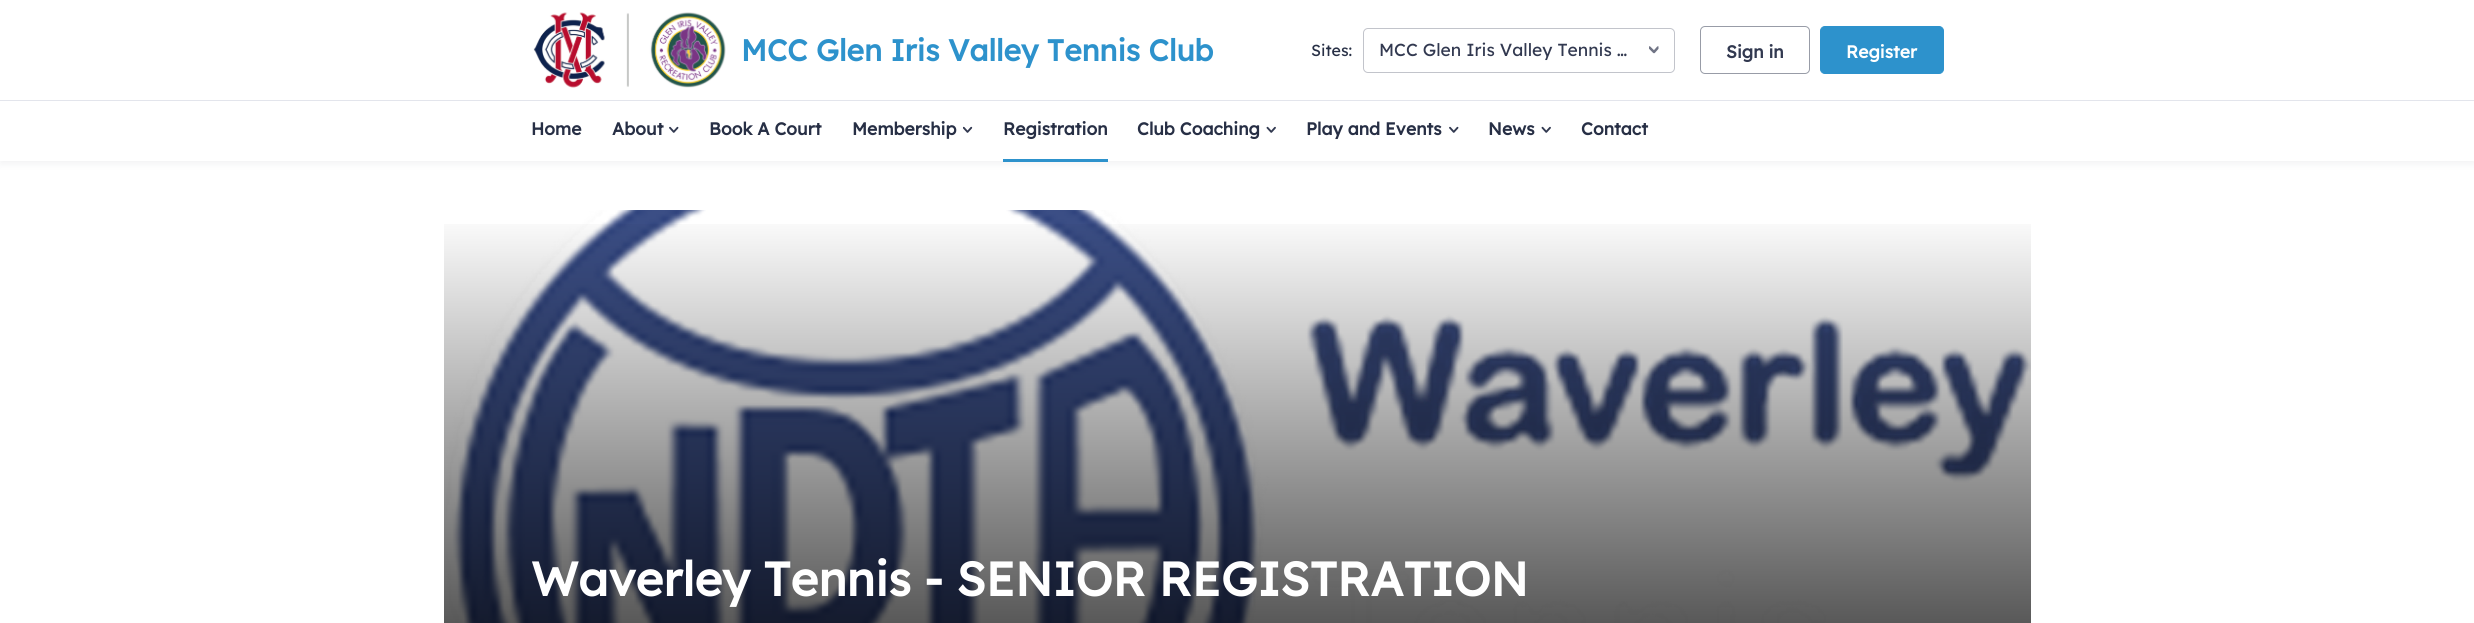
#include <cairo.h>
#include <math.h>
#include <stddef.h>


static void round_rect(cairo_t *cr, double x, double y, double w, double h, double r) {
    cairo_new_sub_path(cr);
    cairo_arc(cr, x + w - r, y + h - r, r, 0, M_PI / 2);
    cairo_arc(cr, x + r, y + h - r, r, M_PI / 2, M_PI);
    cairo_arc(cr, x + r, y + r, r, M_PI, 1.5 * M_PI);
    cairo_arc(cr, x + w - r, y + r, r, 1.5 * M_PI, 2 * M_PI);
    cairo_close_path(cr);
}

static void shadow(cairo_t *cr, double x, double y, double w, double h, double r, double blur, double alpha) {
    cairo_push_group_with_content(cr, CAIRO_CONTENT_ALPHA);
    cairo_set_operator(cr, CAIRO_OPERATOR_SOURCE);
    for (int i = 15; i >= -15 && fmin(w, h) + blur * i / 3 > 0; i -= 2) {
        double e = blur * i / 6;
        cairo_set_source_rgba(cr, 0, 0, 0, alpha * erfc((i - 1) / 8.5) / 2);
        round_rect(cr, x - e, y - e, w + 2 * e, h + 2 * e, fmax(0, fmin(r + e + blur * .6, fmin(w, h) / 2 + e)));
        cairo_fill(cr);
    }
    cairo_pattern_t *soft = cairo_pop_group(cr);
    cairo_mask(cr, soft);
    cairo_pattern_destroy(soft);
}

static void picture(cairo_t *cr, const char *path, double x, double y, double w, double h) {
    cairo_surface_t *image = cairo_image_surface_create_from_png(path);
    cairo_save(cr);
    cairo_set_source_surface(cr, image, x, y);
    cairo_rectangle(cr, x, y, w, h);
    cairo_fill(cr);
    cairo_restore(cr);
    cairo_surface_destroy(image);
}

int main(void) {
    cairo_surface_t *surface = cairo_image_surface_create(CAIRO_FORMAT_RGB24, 2474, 623);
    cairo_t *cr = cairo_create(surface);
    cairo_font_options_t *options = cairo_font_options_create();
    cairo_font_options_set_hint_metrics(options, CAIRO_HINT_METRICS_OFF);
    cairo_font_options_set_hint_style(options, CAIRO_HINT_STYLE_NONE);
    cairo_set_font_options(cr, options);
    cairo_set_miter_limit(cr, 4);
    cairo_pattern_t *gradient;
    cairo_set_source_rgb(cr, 1, 1, 1);
    cairo_paint(cr);
    cairo_set_source_rgb(cr, 0.078, 0.114, 0.216);
    shadow(cr, 0, 3, 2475, 161, 0, 4, 0.06);
    cairo_set_source_rgb(cr, 1, 1, 1);
    cairo_rectangle(cr, 0, 0, 2474, 161);
    cairo_fill(cr);
    picture(cr, "img1.png", 533, 12, 193, 76);
    cairo_select_font_face(cr, "Lexend", CAIRO_FONT_SLANT_NORMAL, CAIRO_FONT_WEIGHT_BOLD);
    cairo_set_font_size(cr, 30);
    cairo_set_source_rgb(cr, 0.176, 0.573, 0.8);
    cairo_move_to(cr, 741, 61);
    cairo_show_text(cr, "MCC Glen Iris Valley Tennis Club");
    cairo_select_font_face(cr, "Lexend", CAIRO_FONT_SLANT_NORMAL, CAIRO_FONT_WEIGHT_NORMAL);
    cairo_set_font_size(cr, 16);
    cairo_set_source_rgb(cr, 0.153, 0.184, 0.271);
    cairo_move_to(cr, 1311, 56);
    cairo_show_text(cr, "Sites:");
    round_rect(cr, 1363.5, 28.5, 311, 44, 4.5);
    cairo_set_source_rgb(cr, 0.761, 0.769, 0.796);
    cairo_set_line_width(cr, 1);
    cairo_stroke(cr);
    cairo_set_font_size(cr, 17.5);
    cairo_set_source_rgb(cr, 0.196, 0.224, 0.314);
    cairo_move_to(cr, 1379, 56);
    cairo_show_text(cr, "MCC Glen Iris Valley Tennis …");
    cairo_save(cr);
    cairo_rectangle(cr, 1649, 45, 10, 10);
    cairo_clip(cr);
    cairo_new_path(cr);
    cairo_move_to(cr, 1649, 45);
    cairo_line_to(cr, 1658.5, 45);
    cairo_line_to(cr, 1658.5, 55);
    cairo_line_to(cr, 1649, 55);
    cairo_close_path(cr);
    cairo_clip(cr);
    cairo_new_path(cr);
    cairo_move_to(cr, 1649.5, 47.5);
    cairo_line_to(cr, 1654, 52);
    cairo_line_to(cr, 1658, 47.5);
    cairo_set_source_rgb(cr, 0.439, 0.455, 0.522);
    cairo_set_line_width(cr, 2.5);
    cairo_set_line_cap(cr, CAIRO_LINE_CAP_ROUND);
    cairo_set_line_join(cr, CAIRO_LINE_JOIN_ROUND);
    cairo_stroke(cr);
    cairo_restore(cr);
    round_rect(cr, 1700.5, 26.5, 109, 47, 4.5);
    cairo_set_source_rgb(cr, 0.596, 0.612, 0.655);
    cairo_stroke(cr);
    cairo_select_font_face(cr, "Lexend", CAIRO_FONT_SLANT_NORMAL, CAIRO_FONT_WEIGHT_BOLD);
    cairo_set_source_rgb(cr, 0.196, 0.224, 0.314);
    cairo_move_to(cr, 1726, 58);
    cairo_show_text(cr, "Sign in");
    cairo_set_source_rgb(cr, 0.176, 0.573, 0.8);
    round_rect(cr, 1820.5, 26.5, 123, 47, 4.5);
    cairo_fill_preserve(cr);
    cairo_stroke(cr);
    cairo_set_source_rgb(cr, 1, 1, 1);
    cairo_move_to(cr, 1846, 58);
    cairo_show_text(cr, "Register");
    cairo_set_source_rgb(cr, 0.89, 0.898, 0.922);
    cairo_rectangle(cr, 0, 100, 2474, 1);
    cairo_fill(cr);
    cairo_set_source_rgb(cr, 0.153, 0.184, 0.271);
    cairo_move_to(cr, 531, 135);
    cairo_show_text(cr, "Home");
    cairo_move_to(cr, 612, 135);
    cairo_show_text(cr, "About");
    picture(cr, "img2.png", 669, 126, 10, 7);
    cairo_move_to(cr, 709, 135);
    cairo_show_text(cr, "Book A Court");
    cairo_move_to(cr, 852, 135);
    cairo_show_text(cr, "Membership");
    picture(cr, "img3.png", 963, 126, 10, 7);
    cairo_set_source_rgb(cr, 0.176, 0.573, 0.8);
    cairo_rectangle(cr, 1003, 159, 105, 3);
    cairo_fill(cr);
    cairo_set_source_rgb(cr, 0.153, 0.184, 0.271);
    cairo_move_to(cr, 1003, 135);
    cairo_show_text(cr, "Registration");
    cairo_move_to(cr, 1137, 135);
    cairo_show_text(cr, "Club Coaching");
    picture(cr, "img4.png", 1266, 126, 10, 7);
    cairo_move_to(cr, 1306, 135);
    cairo_show_text(cr, "Play and Events");
    picture(cr, "img2.png", 1449, 126, 10, 7);
    cairo_move_to(cr, 1488, 135);
    cairo_show_text(cr, "News");
    picture(cr, "img4.png", 1541, 126, 10, 7);
    cairo_move_to(cr, 1581, 135);
    cairo_show_text(cr, "Contact");
    picture(cr, "img5.png", 446, 210, 1585, 413);
    gradient = cairo_pattern_create_linear(1238, 210, 1238, 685);
    cairo_pattern_add_color_stop_rgba(gradient, 0, 0, 0, 0, 0);
    cairo_pattern_add_color_stop_rgba(gradient, 1, 0, 0, 0, 0.75);
    cairo_set_source(cr, gradient);
    cairo_pattern_destroy(gradient);
    cairo_rectangle(cr, 444, 224, 1587, 399);
    cairo_fill(cr);
    cairo_set_font_size(cr, 47.5);
    cairo_set_source_rgb(cr, 1, 1, 1);
    cairo_move_to(cr, 531, 596);
    cairo_show_text(cr, "Waverley Tennis - SENIOR REGISTRATION");
    cairo_surface_write_to_png(surface, "page.png");
    cairo_font_options_destroy(options);
    cairo_destroy(cr);
    cairo_surface_destroy(surface);
    return 0;
}
